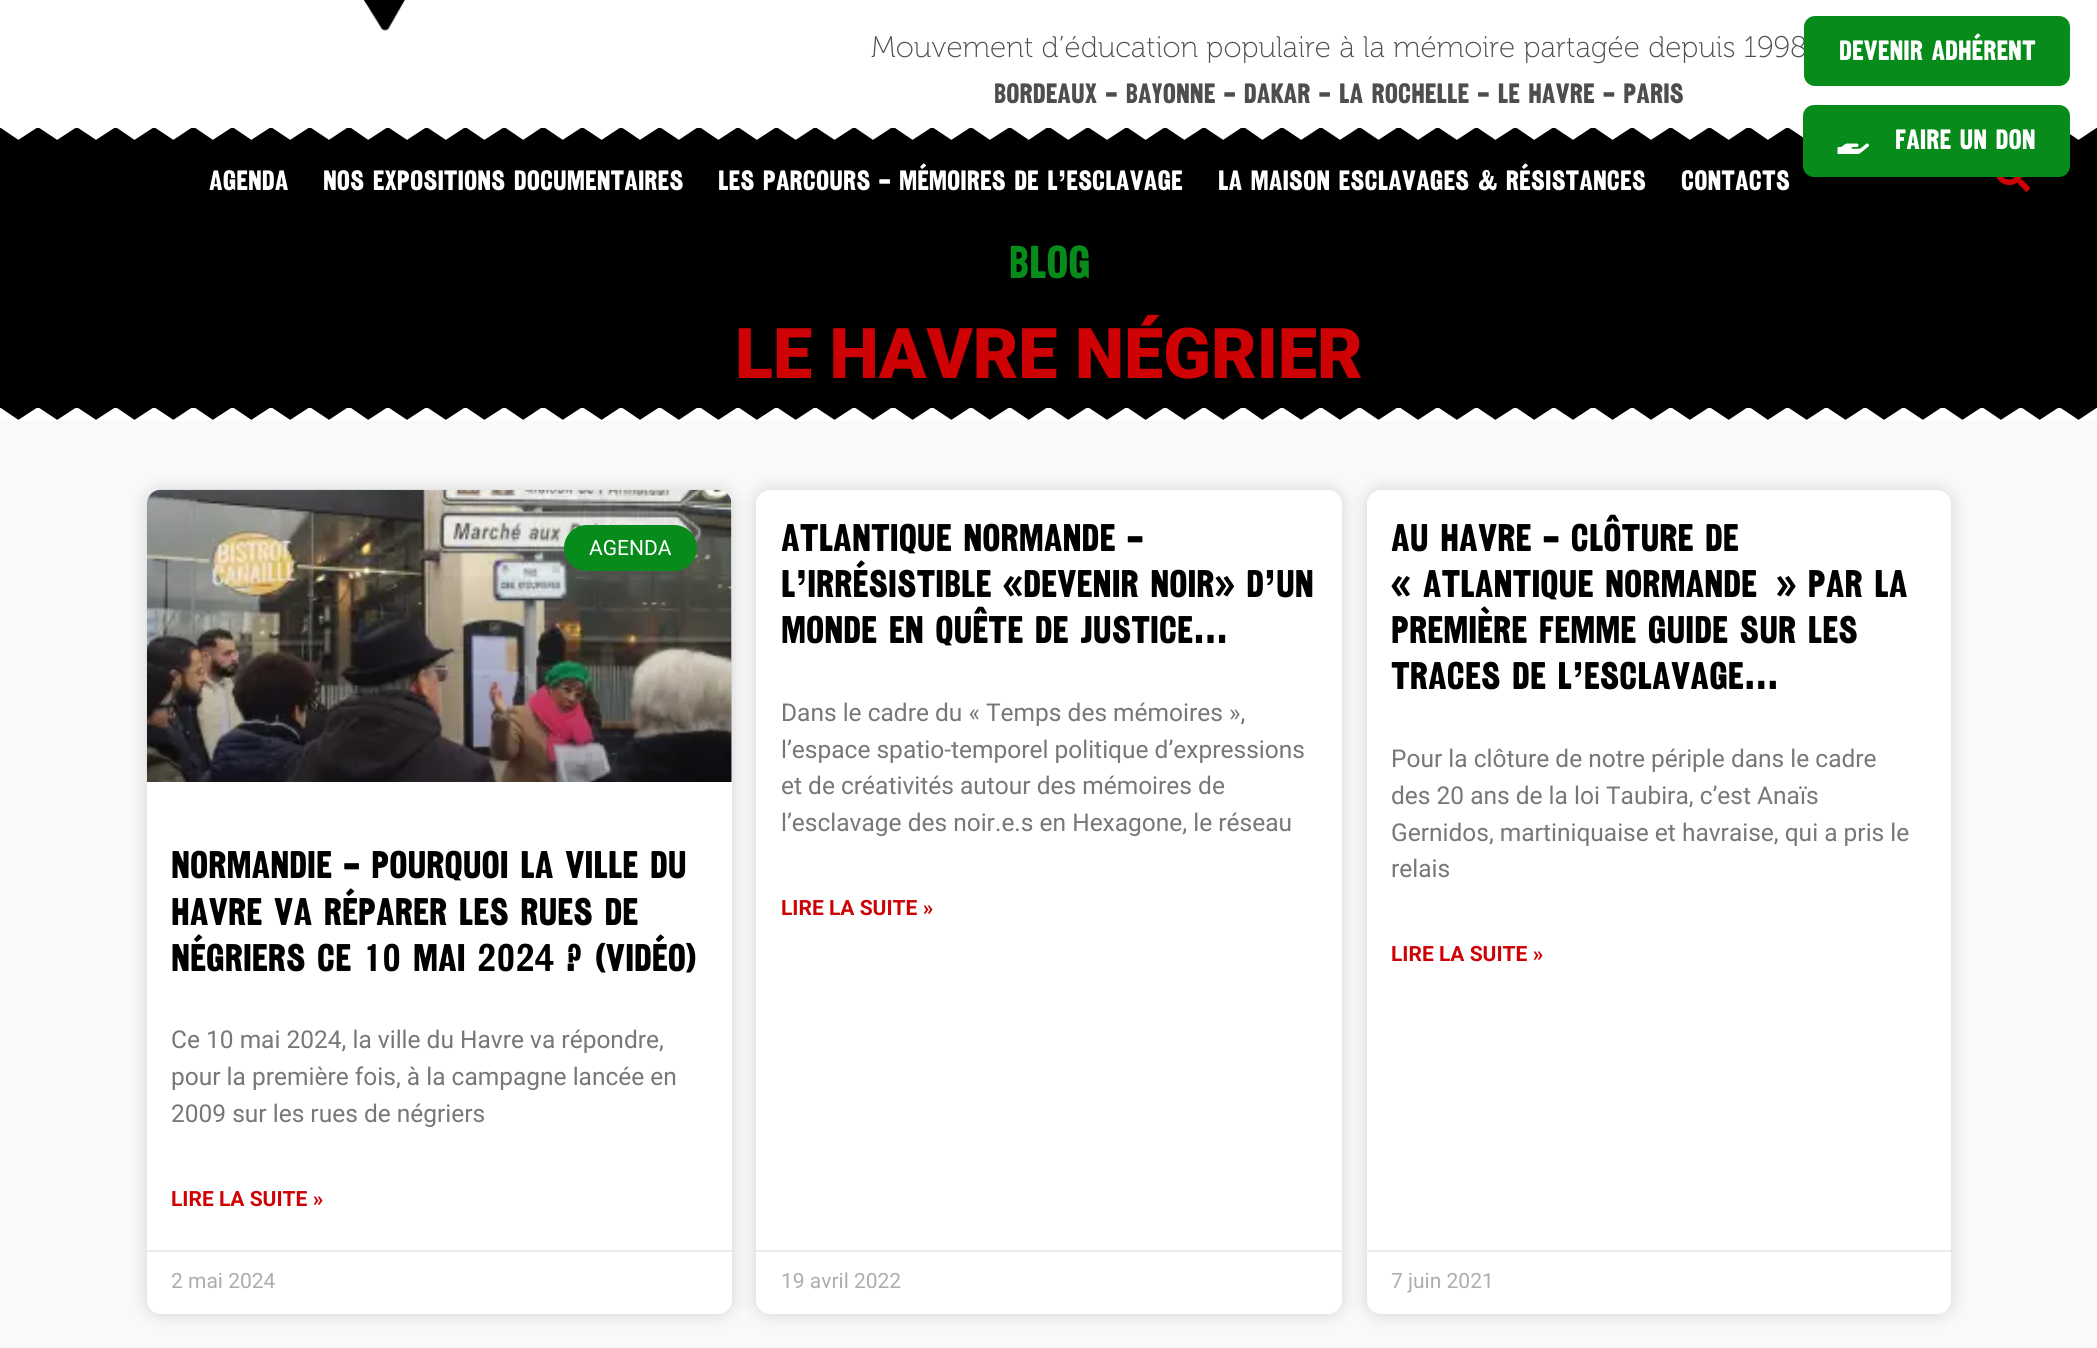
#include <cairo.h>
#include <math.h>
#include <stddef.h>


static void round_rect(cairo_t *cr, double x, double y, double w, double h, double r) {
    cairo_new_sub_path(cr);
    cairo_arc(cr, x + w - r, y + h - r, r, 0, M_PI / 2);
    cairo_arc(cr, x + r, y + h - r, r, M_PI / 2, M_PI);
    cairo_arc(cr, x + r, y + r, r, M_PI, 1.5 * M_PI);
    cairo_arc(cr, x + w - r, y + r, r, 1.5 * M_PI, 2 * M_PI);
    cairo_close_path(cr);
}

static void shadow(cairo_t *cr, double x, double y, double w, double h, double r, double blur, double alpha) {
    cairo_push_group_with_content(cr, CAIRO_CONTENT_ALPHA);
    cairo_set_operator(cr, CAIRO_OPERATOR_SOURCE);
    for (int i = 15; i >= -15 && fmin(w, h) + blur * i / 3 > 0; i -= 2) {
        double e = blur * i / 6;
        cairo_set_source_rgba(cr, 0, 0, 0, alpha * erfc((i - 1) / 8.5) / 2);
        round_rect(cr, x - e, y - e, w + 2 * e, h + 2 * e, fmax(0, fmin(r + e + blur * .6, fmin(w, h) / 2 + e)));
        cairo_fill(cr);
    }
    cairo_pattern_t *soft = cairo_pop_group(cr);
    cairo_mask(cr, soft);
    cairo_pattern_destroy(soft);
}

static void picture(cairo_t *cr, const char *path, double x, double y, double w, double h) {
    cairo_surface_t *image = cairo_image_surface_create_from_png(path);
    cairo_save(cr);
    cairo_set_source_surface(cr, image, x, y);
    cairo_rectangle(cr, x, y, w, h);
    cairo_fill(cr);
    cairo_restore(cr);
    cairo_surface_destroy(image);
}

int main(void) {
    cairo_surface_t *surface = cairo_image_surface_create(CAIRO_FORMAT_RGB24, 2097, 1348);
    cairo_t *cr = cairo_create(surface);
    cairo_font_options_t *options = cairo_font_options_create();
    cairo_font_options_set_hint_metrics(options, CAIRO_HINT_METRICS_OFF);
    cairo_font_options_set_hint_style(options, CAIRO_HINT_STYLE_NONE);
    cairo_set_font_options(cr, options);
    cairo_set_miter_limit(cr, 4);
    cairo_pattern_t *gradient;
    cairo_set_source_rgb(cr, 0.976, 0.976, 0.976);
    cairo_paint(cr);
    cairo_set_source_rgb(cr, 1, 1, 1);
    cairo_rectangle(cr, 0, 0, 2097, 140);
    cairo_fill(cr);
    picture(cr, "img1.png", 363, 0, 42, 31);
    cairo_select_font_face(cr, "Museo", CAIRO_FONT_SLANT_NORMAL, CAIRO_FONT_WEIGHT_NORMAL);
    cairo_set_font_size(cr, 29.75);
    cairo_set_source_rgb(cr, 0.306, 0.306, 0.306);
    cairo_move_to(cr, 871, 57);
    cairo_show_text(cr, "Mouvement d’éducation populaire à la mémoire partagée depuis 1998");
    cairo_set_source_rgb(cr, 0.031, 0.549, 0.11);
    round_rect(cr, 1804, 16, 266, 70, 11);
    cairo_fill(cr);
    cairo_select_font_face(cr, "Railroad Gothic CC", CAIRO_FONT_SLANT_NORMAL, CAIRO_FONT_WEIGHT_BOLD);
    cairo_set_font_size(cr, 28);
    cairo_set_source_rgb(cr, 1, 1, 1);
    cairo_move_to(cr, 1839, 60);
    cairo_show_text(cr, "Devenir Adhérent");
    picture(cr, "img3.png", 0, 128, 2097, 12);
    cairo_set_source_rgb(cr, 0, 0, 0);
    cairo_rectangle(cr, 0, 140, 2097, 280);
    cairo_fill(cr);
    cairo_set_source_rgb(cr, 0.031, 0.549, 0.11);
    round_rect(cr, 1803, 105, 267, 72, 11);
    cairo_fill(cr);
    picture(cr, "img2.png", 1837, 143, 32, 11);
    cairo_set_source_rgb(cr, 1, 1, 1);
    cairo_move_to(cr, 1895, 149);
    cairo_show_text(cr, "Faire un Don");
    cairo_set_source_rgb(cr, 0.306, 0.306, 0.306);
    cairo_move_to(cr, 994, 103);
    cairo_show_text(cr, "BORDEAUX – BAYONNE – DAKAR – LA ROCHELLE – LE HAVRE – PARIS");
    cairo_set_source_rgb(cr, 1, 1, 1);
    cairo_move_to(cr, 209, 190);
    cairo_show_text(cr, "Agenda");
    cairo_move_to(cr, 323, 190);
    cairo_show_text(cr, "NOS EXPOSITIONS DOCUMENTAIRES");
    cairo_move_to(cr, 718, 190);
    cairo_show_text(cr, "LES PARCOURS – MÉMOIRES DE L’ESCLAVAGE");
    cairo_move_to(cr, 1218, 190);
    cairo_show_text(cr, "LA MAISON ESCLAVAGES & RÉSISTANCES");
    cairo_move_to(cr, 1681, 190);
    cairo_show_text(cr, "CONTACTS");
    picture(cr, "img4.png", 1996, 177, 34, 15);
    cairo_set_font_size(cr, 46);
    cairo_set_source_rgb(cr, 0.031, 0.549, 0.11);
    cairo_move_to(cr, 1009, 278);
    cairo_show_text(cr, "Blog");
    cairo_select_font_face(cr, "Roboto Black", CAIRO_FONT_SLANT_NORMAL, CAIRO_FONT_WEIGHT_NORMAL);
    cairo_set_font_size(cr, 70);
    cairo_set_source_rgb(cr, 0.808, 0.008, 0.02);
    cairo_move_to(cr, 735, 378);
    cairo_show_text(cr, "LE HAVRE NÉGRIER");
    picture(cr, "img5.png", 0, 408, 2097, 13);
    cairo_set_source_rgb(cr, 0, 0, 0);
    shadow(cr, 147, 490, 585, 824, 14, 9, 0.15);
    cairo_set_source_rgb(cr, 1, 1, 1);
    round_rect(cr, 147, 490, 585, 824, 14);
    cairo_fill(cr);
    picture(cr, "img6.png", 147, 489, 585, 293);
    gradient = cairo_pattern_create_linear(439, 782, 439, 490);
    cairo_pattern_add_color_stop_rgba(gradient, 0, 0, 0, 0, 0.35);
    cairo_pattern_add_color_stop_rgba(gradient, 0.75, 0, 0, 0, 0);
    cairo_set_source(cr, gradient);
    cairo_pattern_destroy(gradient);
    cairo_rectangle(cr, 147, 576, 585, 206);
    cairo_fill(cr);
    cairo_set_source_rgb(cr, 0.031, 0.549, 0.11);
    round_rect(cr, 564, 525, 133, 46, 23);
    cairo_fill(cr);
    cairo_select_font_face(cr, "Roboto", CAIRO_FONT_SLANT_NORMAL, CAIRO_FONT_WEIGHT_NORMAL);
    cairo_set_font_size(cr, 21);
    cairo_set_source_rgb(cr, 1, 1, 1);
    cairo_move_to(cr, 589, 555);
    cairo_show_text(cr, "AGENDA");
    cairo_select_font_face(cr, "Railroad Gothic CC", CAIRO_FONT_SLANT_NORMAL, CAIRO_FONT_WEIGHT_BOLD);
    cairo_set_font_size(cr, 38.5);
    cairo_set_source_rgb(cr, 0, 0, 0);
    cairo_move_to(cr, 171, 878);
    cairo_show_text(cr, "NORMANDIE – POURQUOI LA VILLE DU");
    cairo_move_to(cr, 171, 925);
    cairo_show_text(cr, "HAVRE VA RÉPARER LES RUES DE");
    cairo_move_to(cr, 171, 971);
    cairo_show_text(cr, "NÉGRIERS CE 10 MAI 2024 ? (vidéo)");
    cairo_select_font_face(cr, "Roboto", CAIRO_FONT_SLANT_NORMAL, CAIRO_FONT_WEIGHT_NORMAL);
    cairo_set_font_size(cr, 24.5);
    cairo_set_source_rgb(cr, 0.467, 0.467, 0.467);
    cairo_move_to(cr, 171, 1048);
    cairo_show_text(cr, "Ce 10 mai 2024, la ville du Havre va répondre,");
    cairo_move_to(cr, 171, 1085);
    cairo_show_text(cr, "pour la première fois, à la campagne lancée en");
    cairo_move_to(cr, 171, 1122);
    cairo_show_text(cr, "2009 sur les rues de négriers");
    cairo_select_font_face(cr, "Roboto", CAIRO_FONT_SLANT_NORMAL, CAIRO_FONT_WEIGHT_BOLD);
    cairo_set_font_size(cr, 21);
    cairo_set_source_rgb(cr, 0.808, 0.008, 0.02);
    cairo_move_to(cr, 171, 1206);
    cairo_show_text(cr, "LIRE LA SUITE »");
    cairo_set_source_rgb(cr, 0.918, 0.918, 0.918);
    cairo_rectangle(cr, 147, 1250, 585, 2);
    cairo_fill(cr);
    cairo_select_font_face(cr, "Roboto", CAIRO_FONT_SLANT_NORMAL, CAIRO_FONT_WEIGHT_NORMAL);
    cairo_set_source_rgb(cr, 0.678, 0.678, 0.678);
    cairo_move_to(cr, 171, 1288);
    cairo_show_text(cr, "2 mai 2024");
    cairo_set_source_rgb(cr, 0, 0, 0);
    shadow(cr, 756, 490, 586, 824, 14, 9, 0.15);
    cairo_set_source_rgb(cr, 1, 1, 1);
    round_rect(cr, 756, 490, 586, 824, 14);
    cairo_fill(cr);
    cairo_select_font_face(cr, "Railroad Gothic CC", CAIRO_FONT_SLANT_NORMAL, CAIRO_FONT_WEIGHT_BOLD);
    cairo_set_font_size(cr, 38.5);
    cairo_set_source_rgb(cr, 0, 0, 0);
    cairo_move_to(cr, 781, 551);
    cairo_show_text(cr, "ATLANTIQUE NORMANDE –");
    cairo_move_to(cr, 781, 597);
    cairo_show_text(cr, "L’irrésistible «Devenir noir» d’un");
    cairo_move_to(cr, 781, 643);
    cairo_show_text(cr, "monde en quête de justice…");
    cairo_select_font_face(cr, "Roboto", CAIRO_FONT_SLANT_NORMAL, CAIRO_FONT_WEIGHT_NORMAL);
    cairo_set_font_size(cr, 24.5);
    cairo_set_source_rgb(cr, 0.467, 0.467, 0.467);
    cairo_move_to(cr, 781, 721);
    cairo_show_text(cr, "Dans le cadre du « Temps des mémoires »,");
    cairo_move_to(cr, 781, 758);
    cairo_show_text(cr, "l’espace spatio-temporel politique d’expressions");
    cairo_move_to(cr, 781, 794);
    cairo_show_text(cr, "et de créativités autour des mémoires de");
    cairo_move_to(cr, 781, 831);
    cairo_show_text(cr, "l’esclavage des noir.e.s en Hexagone, le réseau");
    cairo_select_font_face(cr, "Roboto", CAIRO_FONT_SLANT_NORMAL, CAIRO_FONT_WEIGHT_BOLD);
    cairo_set_font_size(cr, 21);
    cairo_set_source_rgb(cr, 0.808, 0.008, 0.02);
    cairo_move_to(cr, 781, 915);
    cairo_show_text(cr, "LIRE LA SUITE »");
    cairo_set_source_rgb(cr, 0.918, 0.918, 0.918);
    cairo_rectangle(cr, 756, 1250, 586, 2);
    cairo_fill(cr);
    cairo_select_font_face(cr, "Roboto", CAIRO_FONT_SLANT_NORMAL, CAIRO_FONT_WEIGHT_NORMAL);
    cairo_set_source_rgb(cr, 0.678, 0.678, 0.678);
    cairo_move_to(cr, 781, 1288);
    cairo_show_text(cr, "19 avril 2022");
    cairo_set_source_rgb(cr, 0, 0, 0);
    shadow(cr, 1367, 490, 584, 824, 14, 9, 0.15);
    cairo_set_source_rgb(cr, 1, 1, 1);
    round_rect(cr, 1367, 490, 584, 824, 14);
    cairo_fill(cr);
    cairo_select_font_face(cr, "Railroad Gothic CC", CAIRO_FONT_SLANT_NORMAL, CAIRO_FONT_WEIGHT_BOLD);
    cairo_set_font_size(cr, 38.5);
    cairo_set_source_rgb(cr, 0, 0, 0);
    cairo_move_to(cr, 1391, 551);
    cairo_show_text(cr, "AU HAVRE – Clôture de");
    cairo_move_to(cr, 1391, 597);
    cairo_show_text(cr, "« Atlantique normande");
    cairo_move_to(cr, 1776, 597);
    cairo_show_text(cr, "» par la");
    cairo_move_to(cr, 1391, 643);
    cairo_show_text(cr, "première femme guide sur les");
    cairo_move_to(cr, 1391, 689);
    cairo_show_text(cr, "traces de l’esclavage…");
    cairo_select_font_face(cr, "Roboto", CAIRO_FONT_SLANT_NORMAL, CAIRO_FONT_WEIGHT_NORMAL);
    cairo_set_font_size(cr, 24.5);
    cairo_set_source_rgb(cr, 0.467, 0.467, 0.467);
    cairo_move_to(cr, 1391, 767);
    cairo_show_text(cr, "Pour la clôture de notre périple dans le cadre");
    cairo_move_to(cr, 1391, 804);
    cairo_show_text(cr, "des 20 ans de la loi Taubira, c’est Anaïs");
    cairo_move_to(cr, 1391, 841);
    cairo_show_text(cr, "Gernidos, martiniquaise et havraise, qui a pris le");
    cairo_move_to(cr, 1391, 877);
    cairo_show_text(cr, "relais");
    cairo_select_font_face(cr, "Roboto", CAIRO_FONT_SLANT_NORMAL, CAIRO_FONT_WEIGHT_BOLD);
    cairo_set_font_size(cr, 21);
    cairo_set_source_rgb(cr, 0.808, 0.008, 0.02);
    cairo_move_to(cr, 1391, 961);
    cairo_show_text(cr, "LIRE LA SUITE »");
    cairo_set_source_rgb(cr, 0.918, 0.918, 0.918);
    cairo_rectangle(cr, 1367, 1250, 584, 2);
    cairo_fill(cr);
    cairo_select_font_face(cr, "Roboto", CAIRO_FONT_SLANT_NORMAL, CAIRO_FONT_WEIGHT_NORMAL);
    cairo_set_source_rgb(cr, 0.678, 0.678, 0.678);
    cairo_move_to(cr, 1391, 1288);
    cairo_show_text(cr, "7 juin 2021");
    cairo_surface_write_to_png(surface, "page.png");
    cairo_font_options_destroy(options);
    cairo_destroy(cr);
    cairo_surface_destroy(surface);
    return 0;
}
